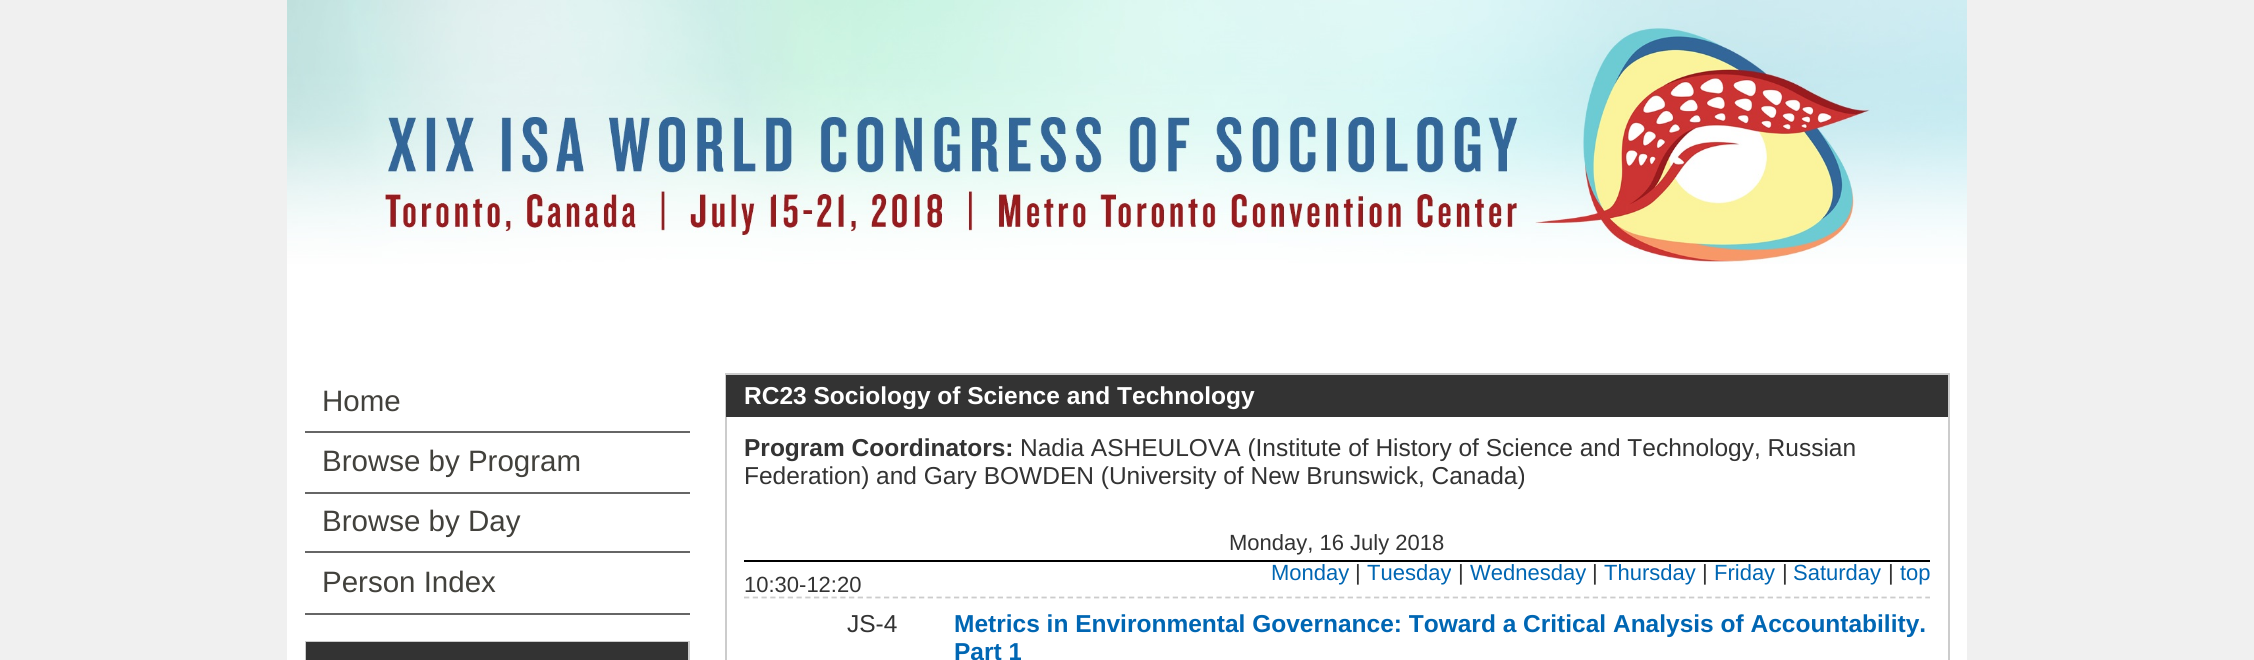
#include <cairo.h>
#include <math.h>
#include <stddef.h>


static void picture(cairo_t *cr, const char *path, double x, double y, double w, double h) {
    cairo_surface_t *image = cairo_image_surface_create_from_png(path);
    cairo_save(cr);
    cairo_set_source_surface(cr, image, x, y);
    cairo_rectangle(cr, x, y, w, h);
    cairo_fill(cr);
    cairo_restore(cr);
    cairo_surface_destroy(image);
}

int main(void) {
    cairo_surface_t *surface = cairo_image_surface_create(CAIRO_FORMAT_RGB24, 2254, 660);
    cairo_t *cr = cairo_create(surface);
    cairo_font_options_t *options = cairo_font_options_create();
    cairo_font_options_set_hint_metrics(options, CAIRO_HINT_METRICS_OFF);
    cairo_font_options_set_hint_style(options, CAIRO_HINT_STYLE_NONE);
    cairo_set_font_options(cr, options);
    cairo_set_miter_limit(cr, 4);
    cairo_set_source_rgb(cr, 0.941, 0.941, 0.941);
    cairo_paint(cr);
    cairo_set_source_rgb(cr, 1, 1, 1);
    cairo_rectangle(cr, 287, 264, 1680, 396);
    cairo_fill(cr);
    picture(cr, "img1.png", 287, 0, 1680, 264);
    cairo_set_source_rgb(cr, 0.4, 0.4, 0.4);
    cairo_rectangle(cr, 305, 431, 385, 2);
    cairo_fill(cr);
    cairo_select_font_face(cr, "Liberation Sans", CAIRO_FONT_SLANT_NORMAL, CAIRO_FONT_WEIGHT_NORMAL);
    cairo_set_font_size(cr, 29.5);
    cairo_set_source_rgb(cr, 0.259, 0.255, 0.235);
    cairo_move_to(cr, 322, 411);
    cairo_show_text(cr, "Home");
    cairo_set_source_rgb(cr, 0.4, 0.4, 0.4);
    cairo_rectangle(cr, 305, 492, 385, 2);
    cairo_fill(cr);
    cairo_set_source_rgb(cr, 0.259, 0.255, 0.235);
    cairo_move_to(cr, 322, 471);
    cairo_show_text(cr, "Browse by Program");
    cairo_set_source_rgb(cr, 0.4, 0.4, 0.4);
    cairo_rectangle(cr, 305, 551, 385, 2);
    cairo_fill(cr);
    cairo_set_source_rgb(cr, 0.259, 0.255, 0.235);
    cairo_move_to(cr, 322, 531);
    cairo_show_text(cr, "Browse by Day");
    cairo_set_source_rgb(cr, 0.4, 0.4, 0.4);
    cairo_rectangle(cr, 305, 613, 385, 2);
    cairo_fill(cr);
    cairo_set_source_rgb(cr, 0.259, 0.255, 0.235);
    cairo_move_to(cr, 322, 592);
    cairo_show_text(cr, "Person Index");
    cairo_rectangle(cr, 306, 642, 383, 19);
    cairo_set_source_rgb(cr, 0.8, 0.8, 0.8);
    cairo_stroke(cr);
    cairo_set_source_rgb(cr, 0.2, 0.2, 0.2);
    cairo_rectangle(cr, 306, 642, 382, 18);
    cairo_fill(cr);
    cairo_rectangle(cr, 726, 374, 1223, 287);
    cairo_set_source_rgb(cr, 0.8, 0.8, 0.8);
    cairo_stroke(cr);
    cairo_set_source_rgb(cr, 0.2, 0.2, 0.2);
    cairo_rectangle(cr, 726, 375, 1222, 42);
    cairo_fill(cr);
    cairo_select_font_face(cr, "Liberation Sans", CAIRO_FONT_SLANT_NORMAL, CAIRO_FONT_WEIGHT_BOLD);
    cairo_set_font_size(cr, 24.5);
    cairo_set_source_rgb(cr, 1, 1, 1);
    cairo_move_to(cr, 744, 404);
    cairo_show_text(cr, "RC23 Sociology of Science and Technology");
    cairo_set_source_rgb(cr, 0.2, 0.2, 0.2);
    cairo_move_to(cr, 744, 456);
    cairo_show_text(cr, "Program Coordinators:");
    cairo_select_font_face(cr, "Liberation Sans", CAIRO_FONT_SLANT_NORMAL, CAIRO_FONT_WEIGHT_NORMAL);
    cairo_move_to(cr, 1020, 456);
    cairo_show_text(cr, "Nadia ASHEULOVA (Institute of History of Science and Technology, Russian");
    cairo_move_to(cr, 744, 484);
    cairo_show_text(cr, "Federation) and Gary BOWDEN (University of New Brunswick, Canada)");
    cairo_set_source_rgb(cr, 0, 0, 0);
    cairo_rectangle(cr, 744, 560, 1186, 2);
    cairo_fill(cr);
    cairo_set_font_size(cr, 22);
    cairo_set_source_rgb(cr, 0.2, 0.2, 0.2);
    cairo_move_to(cr, 1229, 550);
    cairo_show_text(cr, "Monday, 16 July 2018");
    cairo_new_path(cr);
    cairo_move_to(cr, 744, 597.5);
    cairo_line_to(cr, 1930, 597.5);
    cairo_set_source_rgb(cr, 0.8, 0.8, 0.8);
    cairo_set_line_width(cr, 1.8);
    cairo_set_dash(cr, (double[]){5.25, 3.5}, 2, 0);
    cairo_stroke(cr);
    cairo_set_source_rgb(cr, 0.2, 0.2, 0.2);
    cairo_move_to(cr, 744, 592);
    cairo_show_text(cr, "10:30-12:20");
    cairo_set_source_rgb(cr, 0, 0.4, 0.702);
    cairo_move_to(cr, 1271, 580);
    cairo_show_text(cr, "Monday");
    cairo_set_source_rgb(cr, 0.2, 0.2, 0.2);
    cairo_move_to(cr, 1355, 580);
    cairo_show_text(cr, "|");
    cairo_set_source_rgb(cr, 0, 0.4, 0.702);
    cairo_move_to(cr, 1367, 580);
    cairo_show_text(cr, "Tuesday");
    cairo_set_source_rgb(cr, 0.2, 0.2, 0.2);
    cairo_move_to(cr, 1458, 580);
    cairo_show_text(cr, "|");
    cairo_set_source_rgb(cr, 0, 0.4, 0.702);
    cairo_move_to(cr, 1470, 580);
    cairo_show_text(cr, "Wednesday");
    cairo_set_source_rgb(cr, 0.2, 0.2, 0.2);
    cairo_move_to(cr, 1592, 580);
    cairo_show_text(cr, "|");
    cairo_set_source_rgb(cr, 0, 0.4, 0.702);
    cairo_move_to(cr, 1604, 580);
    cairo_show_text(cr, "Thursday");
    cairo_set_source_rgb(cr, 0.2, 0.2, 0.2);
    cairo_move_to(cr, 1702, 580);
    cairo_show_text(cr, "|");
    cairo_set_source_rgb(cr, 0, 0.4, 0.702);
    cairo_move_to(cr, 1714, 580);
    cairo_show_text(cr, "Friday");
    cairo_set_source_rgb(cr, 0.2, 0.2, 0.2);
    cairo_move_to(cr, 1782, 580);
    cairo_show_text(cr, "|");
    cairo_set_source_rgb(cr, 0, 0.4, 0.702);
    cairo_move_to(cr, 1793, 580);
    cairo_show_text(cr, "Saturday");
    cairo_set_source_rgb(cr, 0.2, 0.2, 0.2);
    cairo_move_to(cr, 1888, 580);
    cairo_show_text(cr, "|");
    cairo_set_source_rgb(cr, 0, 0.4, 0.702);
    cairo_move_to(cr, 1900, 580);
    cairo_show_text(cr, "top");
    cairo_set_font_size(cr, 24.5);
    cairo_set_source_rgb(cr, 0.2, 0.2, 0.2);
    cairo_move_to(cr, 847, 632);
    cairo_show_text(cr, "JS-4");
    cairo_select_font_face(cr, "Liberation Sans", CAIRO_FONT_SLANT_NORMAL, CAIRO_FONT_WEIGHT_BOLD);
    cairo_set_source_rgb(cr, 0, 0.4, 0.702);
    cairo_move_to(cr, 954, 632);
    cairo_show_text(cr, "Metrics in Environmental Governance: Toward a Critical Analysis of Accountability.");
    cairo_move_to(cr, 954, 660);
    cairo_show_text(cr, "Part 1");
    cairo_surface_write_to_png(surface, "page.png");
    cairo_font_options_destroy(options);
    cairo_destroy(cr);
    cairo_surface_destroy(surface);
    return 0;
}
